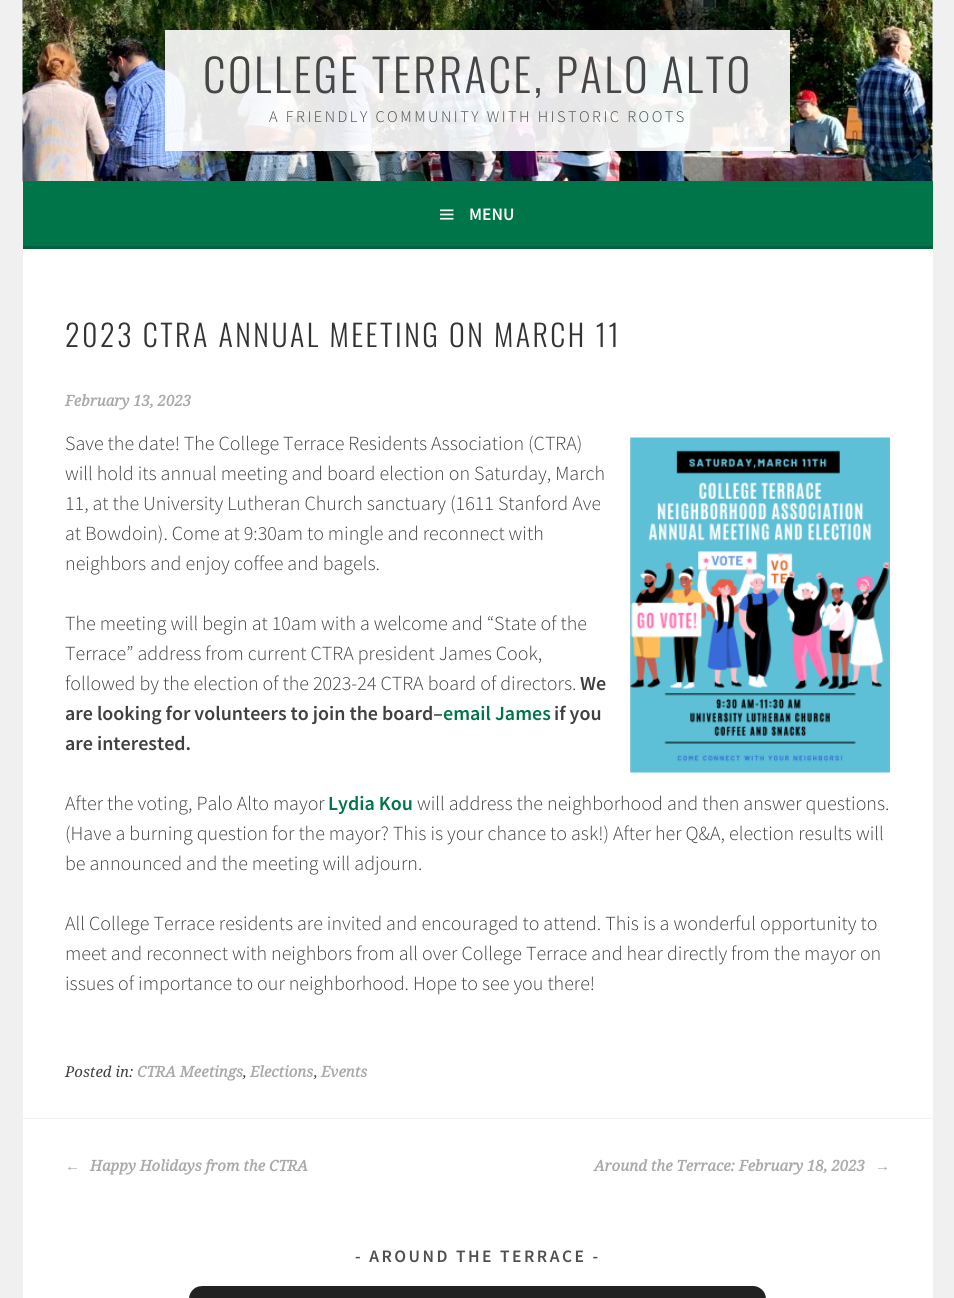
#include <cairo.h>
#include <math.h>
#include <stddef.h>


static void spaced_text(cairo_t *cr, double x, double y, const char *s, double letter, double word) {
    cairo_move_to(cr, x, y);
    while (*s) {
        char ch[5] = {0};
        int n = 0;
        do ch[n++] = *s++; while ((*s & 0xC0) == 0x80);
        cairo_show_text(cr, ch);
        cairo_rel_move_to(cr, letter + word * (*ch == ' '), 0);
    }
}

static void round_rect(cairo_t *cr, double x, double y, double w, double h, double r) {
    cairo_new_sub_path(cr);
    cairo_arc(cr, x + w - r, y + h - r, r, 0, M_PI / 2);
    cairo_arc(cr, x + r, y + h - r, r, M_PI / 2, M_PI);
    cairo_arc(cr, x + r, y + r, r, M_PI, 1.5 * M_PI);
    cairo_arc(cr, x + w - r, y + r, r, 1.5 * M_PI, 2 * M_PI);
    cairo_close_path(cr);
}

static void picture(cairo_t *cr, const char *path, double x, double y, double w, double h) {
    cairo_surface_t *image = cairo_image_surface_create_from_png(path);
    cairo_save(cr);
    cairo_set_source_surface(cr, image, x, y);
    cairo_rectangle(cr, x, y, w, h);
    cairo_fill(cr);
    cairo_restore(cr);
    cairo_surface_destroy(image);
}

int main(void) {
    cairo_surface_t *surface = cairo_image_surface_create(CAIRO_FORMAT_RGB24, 954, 1298);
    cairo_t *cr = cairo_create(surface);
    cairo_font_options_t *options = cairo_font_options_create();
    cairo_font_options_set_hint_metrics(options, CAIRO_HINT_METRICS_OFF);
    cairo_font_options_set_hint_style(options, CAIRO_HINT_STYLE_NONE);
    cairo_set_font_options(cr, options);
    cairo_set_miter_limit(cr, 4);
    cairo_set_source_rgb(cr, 0.941, 0.941, 0.941);
    cairo_paint(cr);
    cairo_set_source_rgb(cr, 1, 1, 1);
    cairo_rectangle(cr, 932, 0, 1, 181);
    cairo_fill(cr);
    picture(cr, "img1.png", 22, 0, 911, 182);
    cairo_set_source_rgba(cr, 1, 1, 1, 0.9);
    cairo_rectangle(cr, 165, 30, 625, 121);
    cairo_fill(cr);
    cairo_select_font_face(cr, "Oswald Light", CAIRO_FONT_SLANT_NORMAL, CAIRO_FONT_WEIGHT_NORMAL);
    cairo_set_font_size(cr, 45);
    cairo_set_source_rgb(cr, 0.275, 0.275, 0.275);
    spaced_text(cr, 203, 93, "COLLEGE TERRACE, PALO ALTO", 2.5, 0);
    cairo_select_font_face(cr, "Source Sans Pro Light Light", CAIRO_FONT_SLANT_NORMAL, CAIRO_FONT_WEIGHT_NORMAL);
    cairo_set_font_size(cr, 16.25);
    spaced_text(cr, 269, 122, "A FRIENDLY COMMUNITY WITH HISTORIC ROOTS", 2.5, 0);
    cairo_set_source_rgb(cr, 0, 0.459, 0.286);
    cairo_rectangle(cr, 23, 181, 910, 65);
    cairo_fill(cr);
    cairo_set_source_rgb(cr, 0, 0.388, 0.243);
    cairo_rectangle(cr, 23, 246, 910, 3);
    cairo_fill(cr);
    picture(cr, "img2.png", 440, 209, 14, 11);
    cairo_select_font_face(cr, "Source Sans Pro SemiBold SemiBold", CAIRO_FONT_SLANT_NORMAL, CAIRO_FONT_WEIGHT_NORMAL);
    cairo_set_font_size(cr, 17.5);
    cairo_set_source_rgb(cr, 1, 1, 1);
    cairo_move_to(cr, 469, 220);
    cairo_show_text(cr, "MENU");
    cairo_rectangle(cr, 23, 249, 910, 1049);
    cairo_fill(cr);
    cairo_select_font_face(cr, "Oswald Light", CAIRO_FONT_SLANT_NORMAL, CAIRO_FONT_WEIGHT_NORMAL);
    cairo_set_font_size(cr, 30);
    cairo_set_source_rgb(cr, 0.2, 0.2, 0.2);
    spaced_text(cr, 65, 347, "2023 CTRA ANNUAL MEETING ON MARCH 11", 2.5, 0);
    cairo_select_font_face(cr, "Droid Serif", CAIRO_FONT_SLANT_ITALIC, CAIRO_FONT_WEIGHT_BOLD);
    cairo_set_font_size(cr, 15);
    cairo_set_source_rgb(cr, 0.667, 0.667, 0.667);
    cairo_move_to(cr, 65, 406);
    cairo_show_text(cr, "February 13, 2023");
    cairo_select_font_face(cr, "Source Sans Pro Light Light", CAIRO_FONT_SLANT_NORMAL, CAIRO_FONT_WEIGHT_NORMAL);
    cairo_set_font_size(cr, 20);
    cairo_set_source_rgb(cr, 0.251, 0.251, 0.251);
    cairo_move_to(cr, 65, 450);
    cairo_show_text(cr, "Save the date! The College Terrace Residents Association (CTRA)");
    cairo_move_to(cr, 65, 480);
    cairo_show_text(cr, "will hold its annual meeting and board election on Saturday, March");
    cairo_move_to(cr, 65, 510);
    cairo_show_text(cr, "11, at the University Lutheran Church sanctuary (1611 Stanford Ave");
    cairo_move_to(cr, 65, 540);
    cairo_show_text(cr, "at Bowdoin). Come at 9:30am to mingle and reconnect with");
    cairo_move_to(cr, 65, 570);
    cairo_show_text(cr, "neighbors and enjoy coffee and bagels.");
    picture(cr, "img3.png", 630, 437, 260, 336);
    cairo_move_to(cr, 65, 630);
    cairo_show_text(cr, "The meeting will begin at 10am with a welcome and “State of the");
    cairo_move_to(cr, 65, 660);
    cairo_show_text(cr, "Terrace” address from current CTRA president James Cook,");
    cairo_move_to(cr, 65, 690);
    cairo_show_text(cr, "followed by the election of the 2023-24 CTRA board of directors.");
    cairo_select_font_face(cr, "Source Sans Pro SemiBold SemiBold", CAIRO_FONT_SLANT_NORMAL, CAIRO_FONT_WEIGHT_NORMAL);
    cairo_move_to(cr, 580, 690);
    cairo_show_text(cr, "We");
    cairo_move_to(cr, 65, 720);
    cairo_show_text(cr, "are looking for volunteers to join the board–");
    cairo_set_source_rgb(cr, 0, 0.459, 0.286);
    cairo_move_to(cr, 443, 720);
    cairo_show_text(cr, "email James");
    cairo_set_source_rgb(cr, 0.251, 0.251, 0.251);
    cairo_move_to(cr, 554, 720);
    cairo_show_text(cr, "if you");
    cairo_move_to(cr, 65, 750);
    cairo_show_text(cr, "are interested.");
    cairo_select_font_face(cr, "Source Sans Pro Light Light", CAIRO_FONT_SLANT_NORMAL, CAIRO_FONT_WEIGHT_NORMAL);
    cairo_move_to(cr, 65, 810);
    cairo_show_text(cr, "After the voting, Palo Alto mayor");
    cairo_select_font_face(cr, "Source Sans Pro SemiBold SemiBold", CAIRO_FONT_SLANT_NORMAL, CAIRO_FONT_WEIGHT_NORMAL);
    cairo_set_source_rgb(cr, 0, 0.459, 0.286);
    cairo_move_to(cr, 328, 810);
    cairo_show_text(cr, "Lydia Kou");
    cairo_select_font_face(cr, "Source Sans Pro Light Light", CAIRO_FONT_SLANT_NORMAL, CAIRO_FONT_WEIGHT_NORMAL);
    cairo_set_source_rgb(cr, 0.251, 0.251, 0.251);
    cairo_move_to(cr, 417, 810);
    cairo_show_text(cr, "will address the neighborhood and then answer questions.");
    cairo_move_to(cr, 65, 840);
    cairo_show_text(cr, "(Have a burning question for the mayor? This is your chance to ask!) After her Q&A, election results will");
    cairo_move_to(cr, 65, 870);
    cairo_show_text(cr, "be announced and the meeting will adjourn.");
    cairo_move_to(cr, 65, 930);
    cairo_show_text(cr, "All College Terrace residents are invited and encouraged to attend. This is a wonderful opportunity to");
    cairo_move_to(cr, 65, 960);
    cairo_show_text(cr, "meet and reconnect with neighbors from all over College Terrace and hear directly from the mayor on");
    cairo_move_to(cr, 65, 990);
    cairo_show_text(cr, "issues of importance to our neighborhood. Hope to see you there!");
    cairo_select_font_face(cr, "Droid Serif", CAIRO_FONT_SLANT_ITALIC, CAIRO_FONT_WEIGHT_NORMAL);
    cairo_set_font_size(cr, 15);
    cairo_move_to(cr, 65, 1077);
    cairo_show_text(cr, "Posted in:");
    cairo_select_font_face(cr, "Droid Serif", CAIRO_FONT_SLANT_ITALIC, CAIRO_FONT_WEIGHT_BOLD);
    cairo_set_source_rgb(cr, 0.667, 0.667, 0.667);
    cairo_move_to(cr, 137, 1077);
    cairo_show_text(cr, "CTRA Meetings");
    cairo_select_font_face(cr, "Droid Serif", CAIRO_FONT_SLANT_ITALIC, CAIRO_FONT_WEIGHT_NORMAL);
    cairo_set_source_rgb(cr, 0.251, 0.251, 0.251);
    cairo_move_to(cr, 243, 1077);
    cairo_show_text(cr, ",");
    cairo_select_font_face(cr, "Droid Serif", CAIRO_FONT_SLANT_ITALIC, CAIRO_FONT_WEIGHT_BOLD);
    cairo_set_source_rgb(cr, 0.667, 0.667, 0.667);
    cairo_move_to(cr, 250, 1077);
    cairo_show_text(cr, "Elections");
    cairo_select_font_face(cr, "Droid Serif", CAIRO_FONT_SLANT_ITALIC, CAIRO_FONT_WEIGHT_NORMAL);
    cairo_set_source_rgb(cr, 0.251, 0.251, 0.251);
    cairo_move_to(cr, 314, 1077);
    cairo_show_text(cr, ",");
    cairo_select_font_face(cr, "Droid Serif", CAIRO_FONT_SLANT_ITALIC, CAIRO_FONT_WEIGHT_BOLD);
    cairo_set_source_rgb(cr, 0.667, 0.667, 0.667);
    cairo_move_to(cr, 321, 1077);
    cairo_show_text(cr, "Events");
    cairo_set_source_rgb(cr, 0.949, 0.949, 0.949);
    cairo_rectangle(cr, 23, 1118, 910, 1);
    cairo_fill(cr);
    cairo_select_font_face(cr, "Liberation Serif", CAIRO_FONT_SLANT_ITALIC, CAIRO_FONT_WEIGHT_BOLD);
    cairo_set_source_rgb(cr, 0.667, 0.667, 0.667);
    cairo_move_to(cr, 65, 1171);
    cairo_show_text(cr, "←");
    cairo_select_font_face(cr, "Droid Serif", CAIRO_FONT_SLANT_ITALIC, CAIRO_FONT_WEIGHT_BOLD);
    cairo_move_to(cr, 90, 1171);
    cairo_show_text(cr, "Happy Holidays from the CTRA");
    cairo_move_to(cr, 594, 1171);
    cairo_show_text(cr, "Around the Terrace: February 18, 2023");
    cairo_select_font_face(cr, "Liberation Serif", CAIRO_FONT_SLANT_ITALIC, CAIRO_FONT_WEIGHT_BOLD);
    cairo_move_to(cr, 875, 1171);
    cairo_show_text(cr, "→");
    cairo_select_font_face(cr, "Source Sans Pro SemiBold SemiBold", CAIRO_FONT_SLANT_NORMAL, CAIRO_FONT_WEIGHT_NORMAL);
    cairo_set_font_size(cr, 17.5);
    cairo_set_source_rgb(cr, 0.31, 0.31, 0.31);
    spaced_text(cr, 355, 1262, "- AROUND THE TERRACE -", 2.5, 0);
    round_rect(cr, 201.5, 1298.5, 552, 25, 0.5);
    cairo_set_source_rgb(cr, 0.133, 0.133, 0.133);
    cairo_set_line_width(cr, 25);
    cairo_stroke(cr);
    cairo_surface_write_to_png(surface, "page.png");
    cairo_font_options_destroy(options);
    cairo_destroy(cr);
    cairo_surface_destroy(surface);
    return 0;
}
